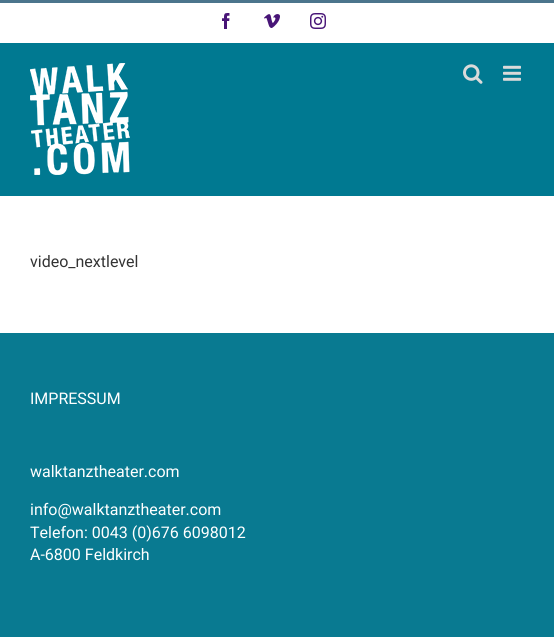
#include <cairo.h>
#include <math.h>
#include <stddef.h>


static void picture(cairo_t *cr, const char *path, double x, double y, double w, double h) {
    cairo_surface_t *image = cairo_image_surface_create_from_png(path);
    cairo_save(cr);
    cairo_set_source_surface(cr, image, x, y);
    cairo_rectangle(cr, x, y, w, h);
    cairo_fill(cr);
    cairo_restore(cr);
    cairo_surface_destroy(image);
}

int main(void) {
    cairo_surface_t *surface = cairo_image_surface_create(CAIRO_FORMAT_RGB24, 554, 637);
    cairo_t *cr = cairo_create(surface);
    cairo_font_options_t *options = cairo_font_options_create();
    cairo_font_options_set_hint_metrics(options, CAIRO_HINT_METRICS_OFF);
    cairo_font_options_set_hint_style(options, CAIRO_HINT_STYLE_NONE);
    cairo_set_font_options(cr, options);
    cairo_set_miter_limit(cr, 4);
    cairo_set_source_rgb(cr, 1, 1, 1);
    cairo_paint(cr);
    cairo_set_source_rgb(cr, 0.294, 0.459, 0.549);
    cairo_rectangle(cr, 0, 0, 554, 3);
    cairo_fill(cr);
    picture(cr, "img1.png", 222, 13, 8, 16);
    picture(cr, "img2.png", 264, 14, 16, 14);
    picture(cr, "img3.png", 310, 13, 16, 16);
    cairo_set_source_rgb(cr, 0, 0.475, 0.569);
    cairo_rectangle(cr, 0, 43, 554, 153);
    cairo_fill(cr);
    picture(cr, "img4.png", 30, 63, 100, 112);
    picture(cr, "img5.png", 463, 64, 20, 20);
    picture(cr, "img6.png", 503, 65, 18, 16);
    cairo_select_font_face(cr, "Roboto", CAIRO_FONT_SLANT_NORMAL, CAIRO_FONT_WEIGHT_NORMAL);
    cairo_set_font_size(cr, 16);
    cairo_set_source_rgb(cr, 0.2, 0.2, 0.2);
    cairo_move_to(cr, 30, 267);
    cairo_show_text(cr, "video_nextlevel");
    cairo_set_source_rgb(cr, 0.039, 0.478, 0.569);
    cairo_rectangle(cr, 0, 333, 554, 304);
    cairo_fill(cr);
    cairo_set_source_rgb(cr, 1, 1, 1);
    cairo_move_to(cr, 30, 404);
    cairo_show_text(cr, "IMPRESSUM");
    cairo_move_to(cr, 30, 477);
    cairo_show_text(cr, "walktanztheater.com");
    cairo_move_to(cr, 30, 515);
    cairo_show_text(cr, "info@walktanztheater.com");
    cairo_move_to(cr, 30, 538);
    cairo_show_text(cr, "Telefon: 0043 (0)676 6098012");
    cairo_move_to(cr, 30, 560);
    cairo_show_text(cr, "A-6800 Feldkirch");
    cairo_surface_write_to_png(surface, "page.png");
    cairo_font_options_destroy(options);
    cairo_destroy(cr);
    cairo_surface_destroy(surface);
    return 0;
}
